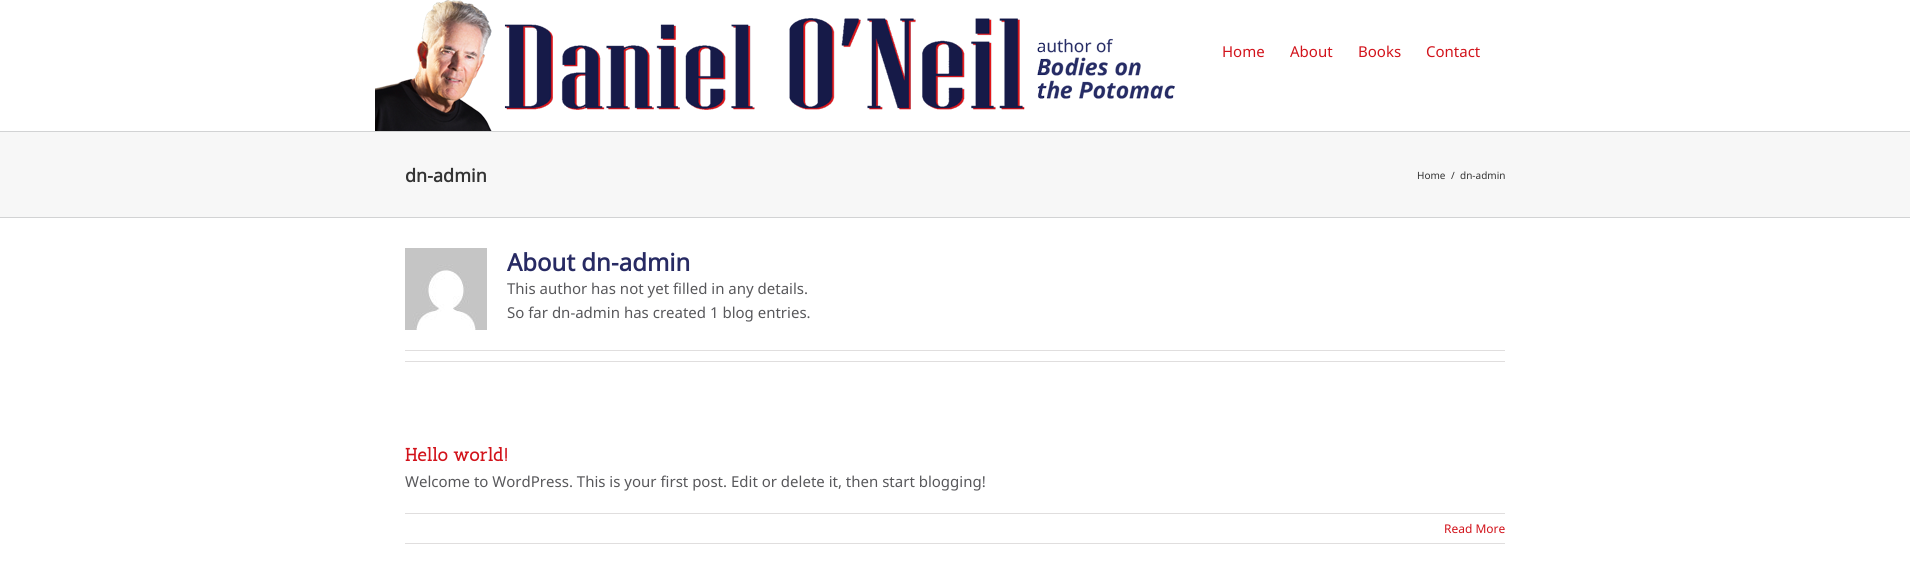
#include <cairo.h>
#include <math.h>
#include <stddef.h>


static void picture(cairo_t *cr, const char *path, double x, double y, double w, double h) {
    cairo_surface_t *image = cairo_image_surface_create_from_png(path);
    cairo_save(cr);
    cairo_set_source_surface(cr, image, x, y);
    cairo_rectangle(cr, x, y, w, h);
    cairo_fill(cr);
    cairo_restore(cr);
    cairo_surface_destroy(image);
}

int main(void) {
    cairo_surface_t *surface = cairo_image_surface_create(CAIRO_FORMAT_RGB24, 1910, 571);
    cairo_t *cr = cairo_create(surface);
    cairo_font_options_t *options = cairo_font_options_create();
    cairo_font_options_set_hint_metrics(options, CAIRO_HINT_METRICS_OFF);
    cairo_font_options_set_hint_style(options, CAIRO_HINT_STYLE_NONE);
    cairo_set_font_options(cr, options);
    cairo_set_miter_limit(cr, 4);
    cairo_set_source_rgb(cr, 1, 1, 1);
    cairo_paint(cr);
    picture(cr, "img1.png", 375, 0, 800, 131);
    cairo_select_font_face(cr, "Noto Sans", CAIRO_FONT_SLANT_NORMAL, CAIRO_FONT_WEIGHT_NORMAL);
    cairo_set_font_size(cr, 15);
    cairo_set_source_rgb(cr, 0.824, 0.075, 0.106);
    cairo_move_to(cr, 1222, 57);
    cairo_show_text(cr, "Home");
    cairo_move_to(cr, 1290, 57);
    cairo_show_text(cr, "About");
    cairo_move_to(cr, 1358, 57);
    cairo_show_text(cr, "Books");
    cairo_move_to(cr, 1426, 57);
    cairo_show_text(cr, "Contact");
    cairo_set_source_rgb(cr, 0.965, 0.965, 0.965);
    cairo_rectangle(cr, 0, 132, 1910, 85);
    cairo_fill(cr);
    cairo_set_source_rgb(cr, 0.824, 0.827, 0.831);
    cairo_rectangle(cr, 0, 131, 1910, 1);
    cairo_fill(cr);
    cairo_rectangle(cr, 0, 217, 1910, 1);
    cairo_fill(cr);
    cairo_select_font_face(cr, "Noto Sans", CAIRO_FONT_SLANT_NORMAL, CAIRO_FONT_WEIGHT_BOLD);
    cairo_set_font_size(cr, 18);
    cairo_set_source_rgb(cr, 0.2, 0.2, 0.2);
    cairo_move_to(cr, 405, 182);
    cairo_show_text(cr, "dn-admin");
    cairo_select_font_face(cr, "Noto Sans", CAIRO_FONT_SLANT_NORMAL, CAIRO_FONT_WEIGHT_NORMAL);
    cairo_set_font_size(cr, 10);
    cairo_move_to(cr, 1417, 179);
    cairo_show_text(cr, "Home");
    cairo_move_to(cr, 1451, 179);
    cairo_show_text(cr, "/");
    cairo_move_to(cr, 1460, 179);
    cairo_show_text(cr, "dn-admin");
    picture(cr, "img2.png", 405, 248, 82, 82);
    cairo_select_font_face(cr, "Noto Sans", CAIRO_FONT_SLANT_NORMAL, CAIRO_FONT_WEIGHT_BOLD);
    cairo_set_font_size(cr, 24);
    cairo_set_source_rgb(cr, 0.153, 0.165, 0.388);
    cairo_move_to(cr, 507, 271);
    cairo_show_text(cr, "About dn-admin");
    cairo_select_font_face(cr, "Noto Sans", CAIRO_FONT_SLANT_NORMAL, CAIRO_FONT_WEIGHT_NORMAL);
    cairo_set_font_size(cr, 15);
    cairo_set_source_rgb(cr, 0.345, 0.345, 0.357);
    cairo_move_to(cr, 507, 294);
    cairo_show_text(cr, "This author has not yet filled in any details.");
    cairo_move_to(cr, 507, 318);
    cairo_show_text(cr, "So far dn-admin has created 1 blog entries.");
    cairo_set_source_rgb(cr, 0.878, 0.871, 0.871);
    cairo_rectangle(cr, 405, 350, 1100, 1);
    cairo_fill(cr);
    cairo_rectangle(cr, 405, 361, 1100, 1);
    cairo_fill(cr);
    cairo_select_font_face(cr, "Antic Slab", CAIRO_FONT_SLANT_NORMAL, CAIRO_FONT_WEIGHT_BOLD);
    cairo_set_font_size(cr, 18);
    cairo_set_source_rgb(cr, 0.824, 0.075, 0.106);
    cairo_move_to(cr, 405, 461);
    cairo_show_text(cr, "Hello world!");
    cairo_select_font_face(cr, "Noto Sans", CAIRO_FONT_SLANT_NORMAL, CAIRO_FONT_WEIGHT_NORMAL);
    cairo_set_font_size(cr, 15);
    cairo_set_source_rgb(cr, 0.345, 0.345, 0.357);
    cairo_move_to(cr, 405, 487);
    cairo_show_text(cr, "Welcome to WordPress. This is your first post. Edit or delete it, then start blogging!");
    cairo_set_source_rgb(cr, 0.878, 0.871, 0.871);
    cairo_rectangle(cr, 405, 513, 1100, 1);
    cairo_fill(cr);
    cairo_rectangle(cr, 405, 543, 1100, 1);
    cairo_fill(cr);
    cairo_set_font_size(cr, 12);
    cairo_set_source_rgb(cr, 0.824, 0.075, 0.106);
    cairo_move_to(cr, 1444, 533);
    cairo_show_text(cr, "Read More");
    cairo_surface_write_to_png(surface, "page.png");
    cairo_font_options_destroy(options);
    cairo_destroy(cr);
    cairo_surface_destroy(surface);
    return 0;
}
